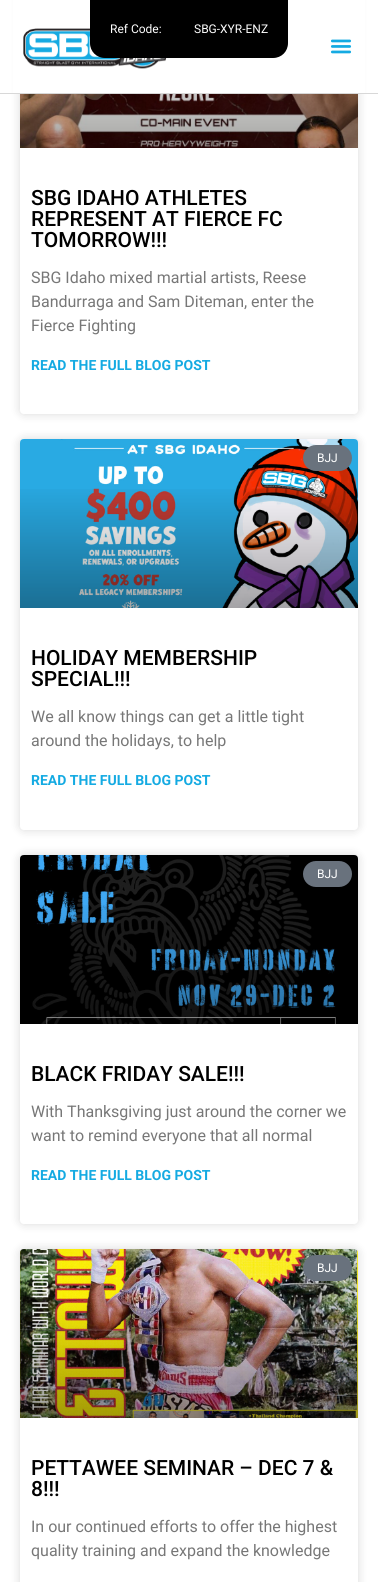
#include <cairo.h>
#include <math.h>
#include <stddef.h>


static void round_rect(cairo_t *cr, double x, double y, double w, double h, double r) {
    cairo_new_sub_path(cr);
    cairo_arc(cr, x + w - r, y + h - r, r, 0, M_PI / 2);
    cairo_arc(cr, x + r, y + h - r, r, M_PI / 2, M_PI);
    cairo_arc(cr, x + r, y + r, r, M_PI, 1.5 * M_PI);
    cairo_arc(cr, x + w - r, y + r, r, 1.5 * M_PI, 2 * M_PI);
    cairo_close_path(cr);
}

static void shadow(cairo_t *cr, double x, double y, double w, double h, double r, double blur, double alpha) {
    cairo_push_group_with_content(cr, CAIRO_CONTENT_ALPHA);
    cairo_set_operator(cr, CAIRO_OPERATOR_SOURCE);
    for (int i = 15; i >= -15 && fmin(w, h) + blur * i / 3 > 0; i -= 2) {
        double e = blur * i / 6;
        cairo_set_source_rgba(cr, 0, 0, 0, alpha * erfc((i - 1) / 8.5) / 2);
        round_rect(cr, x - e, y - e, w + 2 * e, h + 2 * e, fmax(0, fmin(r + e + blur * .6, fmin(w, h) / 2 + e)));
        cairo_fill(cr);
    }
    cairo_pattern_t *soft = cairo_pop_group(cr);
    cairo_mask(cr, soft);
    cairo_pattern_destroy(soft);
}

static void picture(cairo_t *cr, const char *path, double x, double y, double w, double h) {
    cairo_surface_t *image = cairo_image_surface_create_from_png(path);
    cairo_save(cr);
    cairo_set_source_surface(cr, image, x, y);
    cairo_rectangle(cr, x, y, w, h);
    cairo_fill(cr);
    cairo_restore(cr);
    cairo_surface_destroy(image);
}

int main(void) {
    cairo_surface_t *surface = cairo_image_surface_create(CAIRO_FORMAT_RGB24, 378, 1582);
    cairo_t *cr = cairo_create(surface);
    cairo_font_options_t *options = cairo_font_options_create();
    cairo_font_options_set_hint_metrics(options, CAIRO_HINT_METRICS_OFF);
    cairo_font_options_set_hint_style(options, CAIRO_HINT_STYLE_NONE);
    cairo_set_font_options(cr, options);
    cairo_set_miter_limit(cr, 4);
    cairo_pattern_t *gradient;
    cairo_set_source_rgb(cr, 1, 1, 1);
    cairo_paint(cr);
    cairo_set_source_rgb(cr, 0, 0, 0);
    shadow(cr, 20, -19, 338, 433, 4, 5, 0.15);
    cairo_set_source_rgb(cr, 1, 1, 1);
    round_rect(cr, 20, -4, 338, 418, 4);
    cairo_fill(cr);
    cairo_rectangle(cr, 13, 0, 352, 93);
    cairo_fill(cr);
    cairo_set_source_rgb(cr, 0.847, 0.847, 0.847);
    cairo_rectangle(cr, 0, 93, 378, 1);
    cairo_fill(cr);
    picture(cr, "img1.png", 23, 28, 144, 41);
    picture(cr, "img2.png", 330, 39, 22, 15);
    cairo_set_source_rgb(cr, 0, 0, 0);
    cairo_new_path(cr);
    cairo_move_to(cr, 90, 0);
    cairo_line_to(cr, 288, 0);
    cairo_line_to(cr, 288, 43);
    cairo_curve_to(cr, 288, 51.5, 281.5, 58, 273, 58);
    cairo_line_to(cr, 105, 58);
    cairo_curve_to(cr, 96.5, 58, 90, 51.5, 90, 43);
    cairo_close_path(cr);
    cairo_fill(cr);
    cairo_select_font_face(cr, "Roboto", CAIRO_FONT_SLANT_NORMAL, CAIRO_FONT_WEIGHT_NORMAL);
    cairo_set_font_size(cr, 12);
    cairo_set_source_rgb(cr, 1, 1, 1);
    cairo_move_to(cr, 110, 33);
    cairo_show_text(cr, "Ref Code:");
    cairo_move_to(cr, 194, 33);
    cairo_show_text(cr, "SBG-XYR-ENZ");
    picture(cr, "img3.png", 20, 94, 338, 54);
    cairo_select_font_face(cr, "Roboto Medium", CAIRO_FONT_SLANT_NORMAL, CAIRO_FONT_WEIGHT_NORMAL);
    cairo_set_font_size(cr, 21);
    cairo_set_source_rgb(cr, 0, 0, 0);
    cairo_move_to(cr, 31, 205);
    cairo_show_text(cr, "SBG IDAHO ATHLETES");
    cairo_move_to(cr, 31, 226);
    cairo_show_text(cr, "REPRESENT AT FIERCE FC");
    cairo_move_to(cr, 31, 247);
    cairo_show_text(cr, "TOMORROW!!!");
    cairo_select_font_face(cr, "Roboto", CAIRO_FONT_SLANT_NORMAL, CAIRO_FONT_WEIGHT_NORMAL);
    cairo_set_font_size(cr, 16);
    cairo_set_source_rgb(cr, 0.467, 0.467, 0.467);
    cairo_move_to(cr, 31, 283);
    cairo_show_text(cr, "SBG Idaho mixed martial artists, Reese");
    cairo_move_to(cr, 31, 307);
    cairo_show_text(cr, "Bandurraga and Sam Diteman, enter the");
    cairo_move_to(cr, 31, 331);
    cairo_show_text(cr, "Fierce Fighting");
    cairo_select_font_face(cr, "Roboto", CAIRO_FONT_SLANT_NORMAL, CAIRO_FONT_WEIGHT_BOLD);
    cairo_set_font_size(cr, 14);
    cairo_set_source_rgb(cr, 0.082, 0.667, 0.886);
    cairo_move_to(cr, 31, 370);
    cairo_show_text(cr, "READ THE FULL BLOG POST");
    cairo_set_source_rgb(cr, 0, 0, 0);
    shadow(cr, 20, 439, 338, 391, 4, 5, 0.15);
    cairo_set_source_rgb(cr, 1, 1, 1);
    round_rect(cr, 20, 439, 338, 391, 4);
    cairo_fill(cr);
    picture(cr, "img4.png", 20, 439, 338, 169);
    gradient = cairo_pattern_create_linear(189, 608, 189, 439);
    cairo_pattern_add_color_stop_rgba(gradient, 0, 0, 0, 0, 0.35);
    cairo_pattern_add_color_stop_rgba(gradient, 0.75, 0, 0, 0, 0);
    cairo_set_source(cr, gradient);
    cairo_pattern_destroy(gradient);
    cairo_rectangle(cr, 20, 489, 338, 119);
    cairo_fill(cr);
    cairo_set_source_rgb(cr, 0.412, 0.447, 0.49);
    round_rect(cr, 303, 445, 49, 26, 13);
    cairo_fill(cr);
    cairo_select_font_face(cr, "Roboto", CAIRO_FONT_SLANT_NORMAL, CAIRO_FONT_WEIGHT_NORMAL);
    cairo_set_font_size(cr, 12);
    cairo_set_source_rgb(cr, 1, 1, 1);
    cairo_move_to(cr, 317, 462);
    cairo_show_text(cr, "BJJ");
    cairo_select_font_face(cr, "Roboto Medium", CAIRO_FONT_SLANT_NORMAL, CAIRO_FONT_WEIGHT_NORMAL);
    cairo_set_font_size(cr, 21);
    cairo_set_source_rgb(cr, 0, 0, 0);
    cairo_move_to(cr, 31, 665);
    cairo_show_text(cr, "HOLIDAY MEMBERSHIP");
    cairo_move_to(cr, 31, 686);
    cairo_show_text(cr, "SPECIAL!!!");
    cairo_select_font_face(cr, "Roboto", CAIRO_FONT_SLANT_NORMAL, CAIRO_FONT_WEIGHT_NORMAL);
    cairo_set_font_size(cr, 16);
    cairo_set_source_rgb(cr, 0.467, 0.467, 0.467);
    cairo_move_to(cr, 31, 722);
    cairo_show_text(cr, "We all know things can get a little tight");
    cairo_move_to(cr, 31, 746);
    cairo_show_text(cr, "around the holidays, to help");
    cairo_select_font_face(cr, "Roboto", CAIRO_FONT_SLANT_NORMAL, CAIRO_FONT_WEIGHT_BOLD);
    cairo_set_font_size(cr, 14);
    cairo_set_source_rgb(cr, 0.082, 0.667, 0.886);
    cairo_move_to(cr, 31, 785);
    cairo_show_text(cr, "READ THE FULL BLOG POST");
    cairo_set_source_rgb(cr, 0, 0, 0);
    shadow(cr, 20, 855, 338, 369, 4, 5, 0.15);
    cairo_set_source_rgb(cr, 1, 1, 1);
    round_rect(cr, 20, 855, 338, 369, 4);
    cairo_fill(cr);
    picture(cr, "img5.png", 20, 855, 338, 169);
    gradient = cairo_pattern_create_linear(189, 1024, 189, 855);
    cairo_pattern_add_color_stop_rgba(gradient, 0, 0, 0, 0, 0.35);
    cairo_pattern_add_color_stop_rgba(gradient, 0.75, 0, 0, 0, 0);
    cairo_set_source(cr, gradient);
    cairo_pattern_destroy(gradient);
    cairo_rectangle(cr, 32, 905, 304, 119);
    cairo_fill(cr);
    cairo_set_source_rgb(cr, 0.412, 0.447, 0.49);
    round_rect(cr, 303, 861, 49, 26, 13);
    cairo_fill(cr);
    cairo_select_font_face(cr, "Roboto", CAIRO_FONT_SLANT_NORMAL, CAIRO_FONT_WEIGHT_NORMAL);
    cairo_set_font_size(cr, 12);
    cairo_set_source_rgb(cr, 1, 1, 1);
    cairo_move_to(cr, 317, 878);
    cairo_show_text(cr, "BJJ");
    cairo_select_font_face(cr, "Roboto Medium", CAIRO_FONT_SLANT_NORMAL, CAIRO_FONT_WEIGHT_NORMAL);
    cairo_set_font_size(cr, 21);
    cairo_set_source_rgb(cr, 0, 0, 0);
    cairo_move_to(cr, 31, 1081);
    cairo_show_text(cr, "BLACK FRIDAY SALE!!!");
    cairo_select_font_face(cr, "Roboto", CAIRO_FONT_SLANT_NORMAL, CAIRO_FONT_WEIGHT_NORMAL);
    cairo_set_font_size(cr, 16);
    cairo_set_source_rgb(cr, 0.467, 0.467, 0.467);
    cairo_move_to(cr, 31, 1117);
    cairo_show_text(cr, "With Thanksgiving just around the corner we");
    cairo_move_to(cr, 31, 1141);
    cairo_show_text(cr, "want to remind everyone that all normal");
    cairo_select_font_face(cr, "Roboto", CAIRO_FONT_SLANT_NORMAL, CAIRO_FONT_WEIGHT_BOLD);
    cairo_set_font_size(cr, 14);
    cairo_set_source_rgb(cr, 0.082, 0.667, 0.886);
    cairo_move_to(cr, 31, 1180);
    cairo_show_text(cr, "READ THE FULL BLOG POST");
    cairo_set_source_rgb(cr, 0, 0, 0);
    shadow(cr, 20, 1249, 338, 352, 4, 5, 0.15);
    cairo_set_source_rgb(cr, 1, 1, 1);
    round_rect(cr, 20, 1249, 338, 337, 4);
    cairo_fill(cr);
    picture(cr, "img6.png", 20, 1249, 338, 169);
    gradient = cairo_pattern_create_linear(189, 1418, 189, 1249);
    cairo_pattern_add_color_stop_rgba(gradient, 0, 0, 0, 0, 0.35);
    cairo_pattern_add_color_stop_rgba(gradient, 0.75, 0, 0, 0, 0);
    cairo_set_source(cr, gradient);
    cairo_pattern_destroy(gradient);
    cairo_rectangle(cr, 20, 1299, 338, 119);
    cairo_fill(cr);
    cairo_set_source_rgb(cr, 0.412, 0.447, 0.49);
    round_rect(cr, 303, 1255, 49, 26, 13);
    cairo_fill(cr);
    cairo_select_font_face(cr, "Roboto", CAIRO_FONT_SLANT_NORMAL, CAIRO_FONT_WEIGHT_NORMAL);
    cairo_set_font_size(cr, 12);
    cairo_set_source_rgb(cr, 1, 1, 1);
    cairo_move_to(cr, 317, 1272);
    cairo_show_text(cr, "BJJ");
    cairo_select_font_face(cr, "Roboto Medium", CAIRO_FONT_SLANT_NORMAL, CAIRO_FONT_WEIGHT_NORMAL);
    cairo_set_font_size(cr, 21);
    cairo_set_source_rgb(cr, 0, 0, 0);
    cairo_move_to(cr, 31, 1475);
    cairo_show_text(cr, "PETTAWEE SEMINAR – DEC 7 &");
    cairo_move_to(cr, 31, 1496);
    cairo_show_text(cr, "8!!!");
    cairo_select_font_face(cr, "Roboto", CAIRO_FONT_SLANT_NORMAL, CAIRO_FONT_WEIGHT_NORMAL);
    cairo_set_font_size(cr, 16);
    cairo_set_source_rgb(cr, 0.467, 0.467, 0.467);
    cairo_move_to(cr, 31, 1532);
    cairo_show_text(cr, "In our continued efforts to offer the highest");
    cairo_move_to(cr, 31, 1556);
    cairo_show_text(cr, "quality training and expand the knowledge");
    cairo_surface_write_to_png(surface, "page.png");
    cairo_font_options_destroy(options);
    cairo_destroy(cr);
    cairo_surface_destroy(surface);
    return 0;
}
